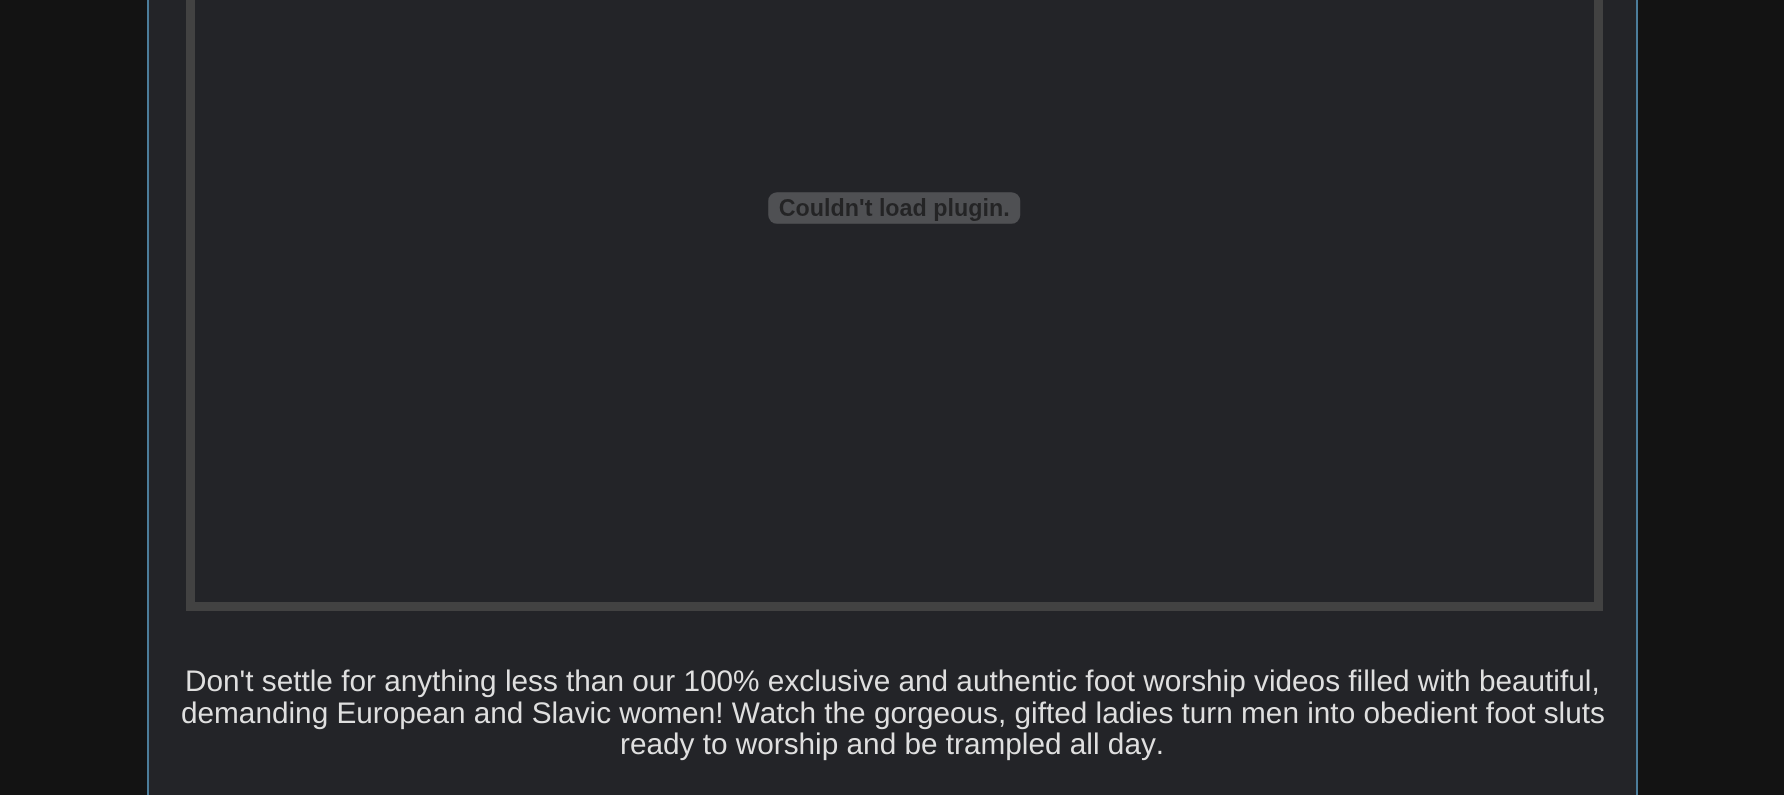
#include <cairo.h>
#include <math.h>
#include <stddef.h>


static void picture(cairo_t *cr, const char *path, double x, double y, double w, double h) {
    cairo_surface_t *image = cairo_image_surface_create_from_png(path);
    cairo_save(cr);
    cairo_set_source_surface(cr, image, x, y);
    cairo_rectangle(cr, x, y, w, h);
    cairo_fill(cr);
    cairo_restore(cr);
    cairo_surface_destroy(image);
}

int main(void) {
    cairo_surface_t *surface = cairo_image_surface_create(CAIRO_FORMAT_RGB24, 1784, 795);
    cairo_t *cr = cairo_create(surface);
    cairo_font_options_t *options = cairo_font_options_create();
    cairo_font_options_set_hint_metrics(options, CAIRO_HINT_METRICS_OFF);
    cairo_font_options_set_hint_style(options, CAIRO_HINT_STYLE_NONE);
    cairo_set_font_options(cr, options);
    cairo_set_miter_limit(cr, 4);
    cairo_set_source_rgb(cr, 0.078, 0.078, 0.078);
    cairo_paint(cr);
    cairo_set_source_rgb(cr, 0.137, 0.141, 0.157);
    cairo_rectangle(cr, 149, 0, 1487, 795);
    cairo_fill(cr);
    cairo_rectangle(cr, 190.5, -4.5, 1408, 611);
    cairo_set_source_rgb(cr, 0.259, 0.259, 0.259);
    cairo_set_line_width(cr, 9);
    cairo_stroke(cr);
    picture(cr, "img1.png", 768, 192, 253, 32);
    cairo_set_source_rgb(cr, 0.298, 0.49, 0.608);
    cairo_rectangle(cr, 1636, 0, 2, 795);
    cairo_fill(cr);
    cairo_rectangle(cr, 147, 0, 2, 795);
    cairo_fill(cr);
    cairo_select_font_face(cr, "Liberation Sans", CAIRO_FONT_SLANT_NORMAL, CAIRO_FONT_WEIGHT_NORMAL);
    cairo_set_font_size(cr, 29.75);
    cairo_set_source_rgb(cr, 0.875, 0.875, 0.875);
    cairo_move_to(cr, 185, 691);
    cairo_show_text(cr, "Don't settle for anything less than our 100% exclusive and authentic foot worship videos filled with beautiful,");
    cairo_move_to(cr, 181, 723);
    cairo_show_text(cr, "demanding European and Slavic women! Watch the gorgeous, gifted ladies turn men into obedient foot sluts");
    cairo_move_to(cr, 620, 754);
    cairo_show_text(cr, "ready to worship and be trampled all day.");
    cairo_surface_write_to_png(surface, "page.png");
    cairo_font_options_destroy(options);
    cairo_destroy(cr);
    cairo_surface_destroy(surface);
    return 0;
}
